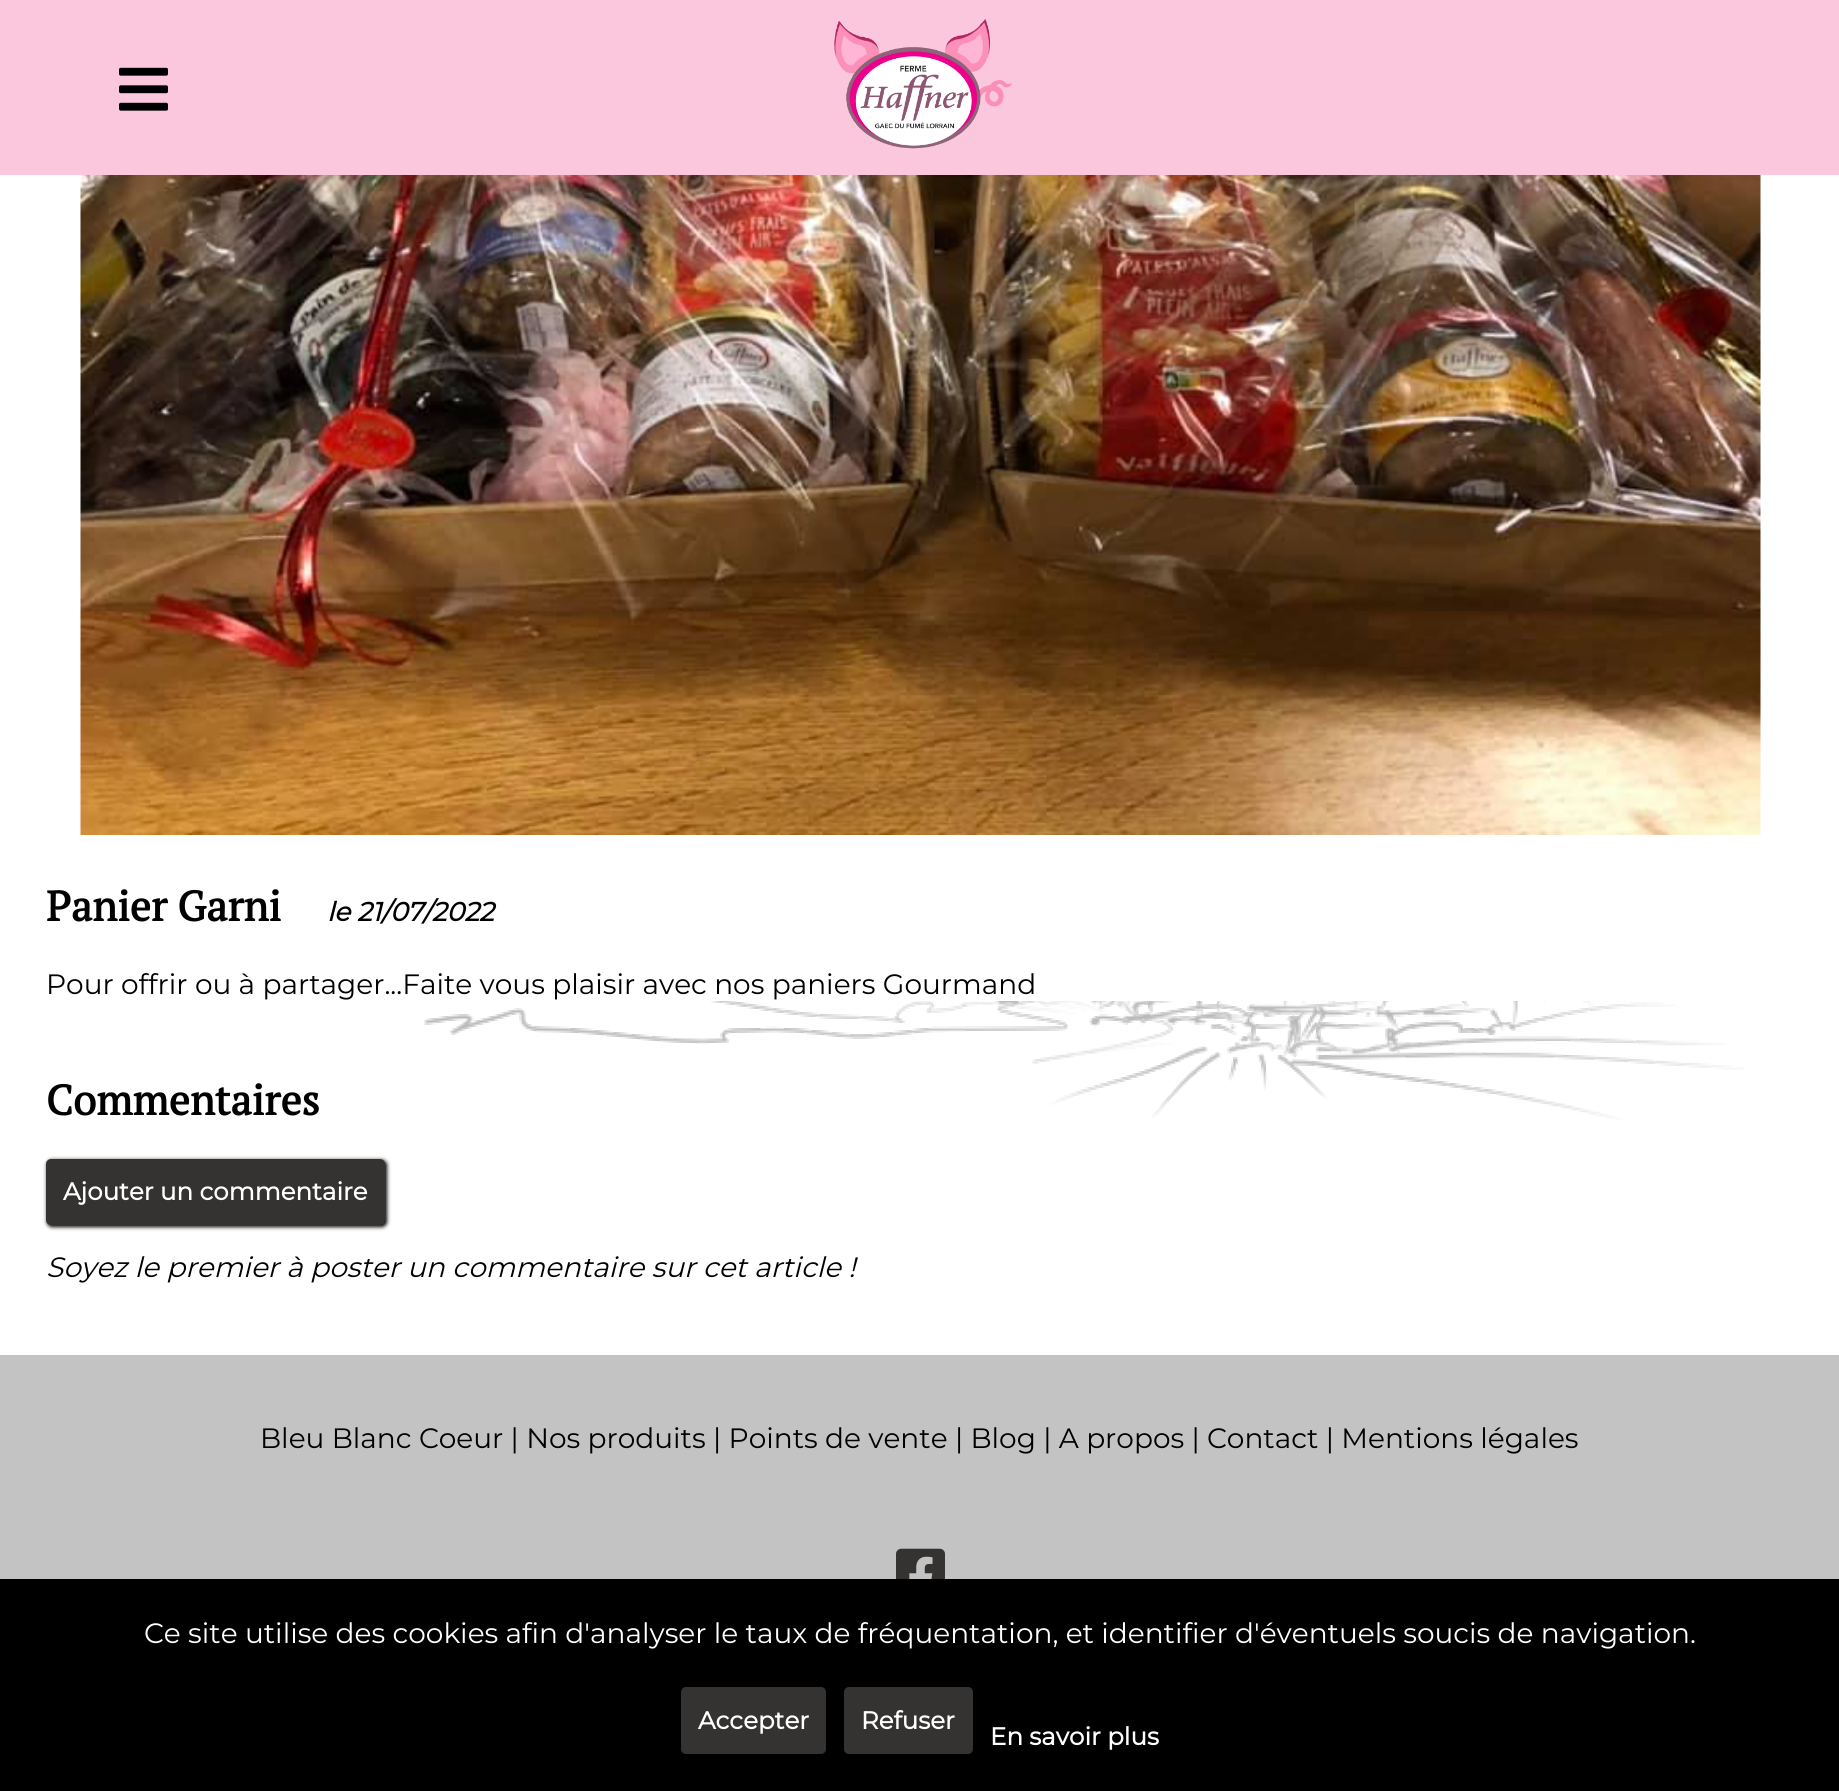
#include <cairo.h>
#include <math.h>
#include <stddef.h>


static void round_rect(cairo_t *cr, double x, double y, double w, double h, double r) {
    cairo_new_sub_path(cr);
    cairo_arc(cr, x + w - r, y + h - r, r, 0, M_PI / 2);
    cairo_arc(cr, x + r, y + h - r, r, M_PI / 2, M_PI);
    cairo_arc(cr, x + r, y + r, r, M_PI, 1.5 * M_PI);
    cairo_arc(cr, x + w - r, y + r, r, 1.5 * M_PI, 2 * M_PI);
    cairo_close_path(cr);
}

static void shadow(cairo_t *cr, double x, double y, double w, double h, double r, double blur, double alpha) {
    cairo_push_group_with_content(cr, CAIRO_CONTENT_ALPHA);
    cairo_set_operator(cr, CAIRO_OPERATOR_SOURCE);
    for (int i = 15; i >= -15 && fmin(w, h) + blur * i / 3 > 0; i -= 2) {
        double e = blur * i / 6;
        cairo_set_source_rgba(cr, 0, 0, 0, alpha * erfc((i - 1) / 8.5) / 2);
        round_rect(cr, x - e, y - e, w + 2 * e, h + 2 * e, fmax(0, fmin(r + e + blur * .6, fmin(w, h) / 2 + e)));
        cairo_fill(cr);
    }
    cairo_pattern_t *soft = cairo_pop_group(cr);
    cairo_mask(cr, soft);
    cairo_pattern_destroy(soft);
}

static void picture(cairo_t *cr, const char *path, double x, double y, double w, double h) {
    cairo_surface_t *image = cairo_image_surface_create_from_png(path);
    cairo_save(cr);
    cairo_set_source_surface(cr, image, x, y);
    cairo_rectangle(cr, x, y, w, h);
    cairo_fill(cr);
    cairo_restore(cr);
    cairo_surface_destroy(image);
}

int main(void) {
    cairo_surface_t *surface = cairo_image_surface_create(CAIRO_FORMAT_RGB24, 1839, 1791);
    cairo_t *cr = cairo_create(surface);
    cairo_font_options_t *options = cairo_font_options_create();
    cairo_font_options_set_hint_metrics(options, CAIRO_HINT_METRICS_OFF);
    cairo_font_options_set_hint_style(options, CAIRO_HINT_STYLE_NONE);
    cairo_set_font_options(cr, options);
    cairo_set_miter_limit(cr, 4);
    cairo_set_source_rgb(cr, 1, 1, 1);
    cairo_paint(cr);
    picture(cr, "img1.png", 422, 1001, 1322, 119);
    cairo_set_source_rgb(cr, 0.984, 0.78, 0.867);
    cairo_rectangle(cr, 0, 0, 1839, 175);
    cairo_fill(cr);
    picture(cr, "img2.png", 119, 67, 49, 44);
    picture(cr, "img3.png", 834, 19, 178, 130);
    picture(cr, "img4.png", 80, 175, 1681, 660);
    cairo_select_font_face(cr, "PT Serif", CAIRO_FONT_SLANT_NORMAL, CAIRO_FONT_WEIGHT_BOLD);
    cairo_set_font_size(cr, 42);
    cairo_set_source_rgb(cr, 0, 0, 0);
    cairo_move_to(cr, 46, 921);
    cairo_show_text(cr, "Panier Garni");
    cairo_select_font_face(cr, "Montserrat", CAIRO_FONT_SLANT_ITALIC, CAIRO_FONT_WEIGHT_BOLD);
    cairo_set_font_size(cr, 26.25);
    cairo_move_to(cr, 327, 921);
    cairo_show_text(cr, "le 21/07/2022");
    cairo_select_font_face(cr, "Montserrat Thin", CAIRO_FONT_SLANT_NORMAL, CAIRO_FONT_WEIGHT_NORMAL);
    cairo_set_font_size(cr, 28);
    cairo_move_to(cr, 46, 994);
    cairo_show_text(cr, "Pour offrir ou à partager...Faite vous plaisir avec nos paniers Gourmand");
    cairo_select_font_face(cr, "PT Serif", CAIRO_FONT_SLANT_NORMAL, CAIRO_FONT_WEIGHT_BOLD);
    cairo_set_font_size(cr, 42);
    cairo_move_to(cr, 46, 1115);
    cairo_show_text(cr, "Commentaires");
    cairo_set_source_rgb(cr, 0, 0, 0);
    shadow(cr, 47, 1160, 340, 67, 5, 2, 1);
    cairo_set_source_rgb(cr, 0.208, 0.196, 0.196);
    round_rect(cr, 46, 1159, 339, 66, 5);
    cairo_fill(cr);
    cairo_select_font_face(cr, "Montserrat", CAIRO_FONT_SLANT_NORMAL, CAIRO_FONT_WEIGHT_BOLD);
    cairo_set_font_size(cr, 24.5);
    cairo_set_source_rgb(cr, 1, 1, 1);
    cairo_move_to(cr, 63, 1200);
    cairo_show_text(cr, "Ajouter un commentaire");
    cairo_select_font_face(cr, "Montserrat Thin", CAIRO_FONT_SLANT_ITALIC, CAIRO_FONT_WEIGHT_NORMAL);
    cairo_set_font_size(cr, 28);
    cairo_set_source_rgb(cr, 0, 0, 0);
    cairo_move_to(cr, 46, 1277);
    cairo_show_text(cr, "Soyez le premier à poster un commentaire sur cet article !");
    cairo_set_source_rgb(cr, 0.765, 0.765, 0.765);
    cairo_rectangle(cr, 0, 1355, 1839, 224);
    cairo_fill(cr);
    cairo_select_font_face(cr, "Montserrat Thin", CAIRO_FONT_SLANT_NORMAL, CAIRO_FONT_WEIGHT_NORMAL);
    cairo_set_source_rgb(cr, 0, 0, 0);
    cairo_move_to(cr, 260, 1448);
    cairo_show_text(cr, "Bleu Blanc Coeur | Nos produits | Points de vente | Blog | A propos | Contact | Mentions légales");
    picture(cr, "img5.png", 896, 1548, 49, 31);
    cairo_rectangle(cr, 0, 1579, 1839, 212);
    cairo_fill(cr);
    cairo_set_source_rgb(cr, 1, 1, 1);
    cairo_move_to(cr, 144, 1643);
    cairo_show_text(cr, "Ce site utilise des cookies afin d'analyser le taux de fréquentation, et identifier d'éventuels soucis de navigation.");
    cairo_set_source_rgb(cr, 0.208, 0.196, 0.196);
    round_rect(cr, 681, 1687, 145, 67, 5);
    cairo_fill(cr);
    cairo_select_font_face(cr, "Montserrat", CAIRO_FONT_SLANT_NORMAL, CAIRO_FONT_WEIGHT_BOLD);
    cairo_set_font_size(cr, 24.5);
    cairo_set_source_rgb(cr, 1, 1, 1);
    cairo_move_to(cr, 698, 1729);
    cairo_show_text(cr, "Accepter");
    cairo_set_source_rgb(cr, 0.208, 0.196, 0.196);
    round_rect(cr, 844, 1687, 129, 67, 5);
    cairo_fill(cr);
    cairo_set_source_rgb(cr, 1, 1, 1);
    cairo_move_to(cr, 861, 1729);
    cairo_show_text(cr, "Refuser");
    cairo_move_to(cr, 990, 1745);
    cairo_show_text(cr, "En savoir plus");
    cairo_surface_write_to_png(surface, "page.png");
    cairo_font_options_destroy(options);
    cairo_destroy(cr);
    cairo_surface_destroy(surface);
    return 0;
}
